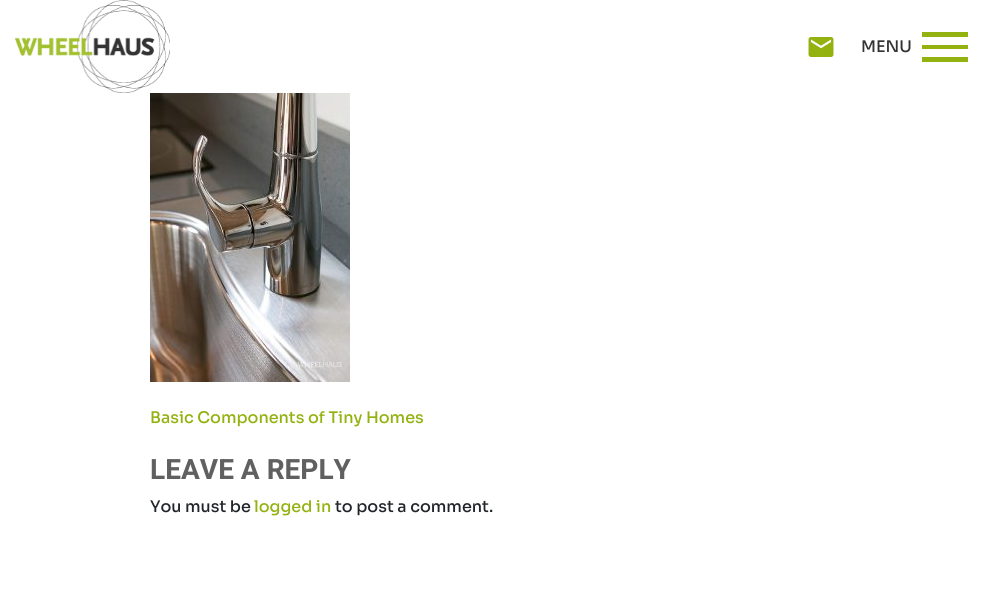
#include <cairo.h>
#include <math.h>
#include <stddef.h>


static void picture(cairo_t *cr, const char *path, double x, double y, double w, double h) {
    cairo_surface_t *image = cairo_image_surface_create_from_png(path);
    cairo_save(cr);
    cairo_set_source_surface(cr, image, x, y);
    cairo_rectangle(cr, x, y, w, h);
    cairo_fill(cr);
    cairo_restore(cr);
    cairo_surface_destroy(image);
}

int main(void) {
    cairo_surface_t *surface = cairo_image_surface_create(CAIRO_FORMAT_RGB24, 990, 601);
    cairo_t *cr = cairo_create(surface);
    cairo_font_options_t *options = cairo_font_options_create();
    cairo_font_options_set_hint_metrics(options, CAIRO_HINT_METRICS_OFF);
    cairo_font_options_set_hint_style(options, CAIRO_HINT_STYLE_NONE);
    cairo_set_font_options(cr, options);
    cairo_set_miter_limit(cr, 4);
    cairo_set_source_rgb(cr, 1, 1, 1);
    cairo_paint(cr);
    picture(cr, "img1.png", 15, 0, 155, 93);
    picture(cr, "img2.png", 808, 37, 26, 20);
    cairo_select_font_face(cr, "Sora Medium", CAIRO_FONT_SLANT_NORMAL, CAIRO_FONT_WEIGHT_NORMAL);
    cairo_set_font_size(cr, 16);
    cairo_set_source_rgb(cr, 0.2, 0.2, 0.2);
    cairo_move_to(cr, 861, 52);
    cairo_show_text(cr, "MENU");
    cairo_set_source_rgb(cr, 0.576, 0.698, 0.063);
    cairo_new_path(cr);
    cairo_move_to(cr, 922, 32);
    cairo_line_to(cr, 968, 32);
    cairo_line_to(cr, 968, 37);
    cairo_line_to(cr, 922, 37);
    cairo_close_path(cr);
    cairo_move_to(cr, 922, 49);
    cairo_line_to(cr, 922, 45);
    cairo_line_to(cr, 968, 45);
    cairo_line_to(cr, 968, 49);
    cairo_close_path(cr);
    cairo_move_to(cr, 922, 62);
    cairo_line_to(cr, 922, 57);
    cairo_line_to(cr, 968, 57);
    cairo_line_to(cr, 968, 62);
    cairo_close_path(cr);
    cairo_fill(cr);
    picture(cr, "img3.png", 150, 93, 200, 289);
    cairo_move_to(cr, 150, 423);
    cairo_show_text(cr, "Basic Components of Tiny Homes");
    cairo_select_font_face(cr, "Heebo", CAIRO_FONT_SLANT_NORMAL, CAIRO_FONT_WEIGHT_BOLD);
    cairo_set_font_size(cr, 28);
    cairo_set_source_rgb(cr, 0.376, 0.376, 0.376);
    cairo_move_to(cr, 150, 479);
    cairo_show_text(cr, "LEAVE A REPLY");
    cairo_select_font_face(cr, "Sora Medium", CAIRO_FONT_SLANT_NORMAL, CAIRO_FONT_WEIGHT_NORMAL);
    cairo_set_font_size(cr, 16);
    cairo_set_source_rgb(cr, 0.129, 0.145, 0.161);
    cairo_move_to(cr, 150, 512);
    cairo_show_text(cr, "You must be");
    cairo_set_source_rgb(cr, 0.576, 0.698, 0.063);
    cairo_move_to(cr, 254, 512);
    cairo_show_text(cr, "logged in");
    cairo_set_source_rgb(cr, 0.129, 0.145, 0.161);
    cairo_move_to(cr, 335, 512);
    cairo_show_text(cr, "to post a comment.");
    cairo_surface_write_to_png(surface, "page.png");
    cairo_font_options_destroy(options);
    cairo_destroy(cr);
    cairo_surface_destroy(surface);
    return 0;
}
